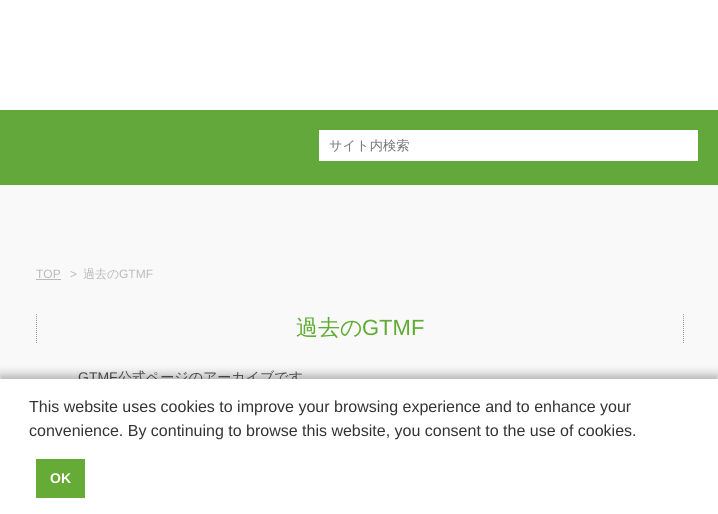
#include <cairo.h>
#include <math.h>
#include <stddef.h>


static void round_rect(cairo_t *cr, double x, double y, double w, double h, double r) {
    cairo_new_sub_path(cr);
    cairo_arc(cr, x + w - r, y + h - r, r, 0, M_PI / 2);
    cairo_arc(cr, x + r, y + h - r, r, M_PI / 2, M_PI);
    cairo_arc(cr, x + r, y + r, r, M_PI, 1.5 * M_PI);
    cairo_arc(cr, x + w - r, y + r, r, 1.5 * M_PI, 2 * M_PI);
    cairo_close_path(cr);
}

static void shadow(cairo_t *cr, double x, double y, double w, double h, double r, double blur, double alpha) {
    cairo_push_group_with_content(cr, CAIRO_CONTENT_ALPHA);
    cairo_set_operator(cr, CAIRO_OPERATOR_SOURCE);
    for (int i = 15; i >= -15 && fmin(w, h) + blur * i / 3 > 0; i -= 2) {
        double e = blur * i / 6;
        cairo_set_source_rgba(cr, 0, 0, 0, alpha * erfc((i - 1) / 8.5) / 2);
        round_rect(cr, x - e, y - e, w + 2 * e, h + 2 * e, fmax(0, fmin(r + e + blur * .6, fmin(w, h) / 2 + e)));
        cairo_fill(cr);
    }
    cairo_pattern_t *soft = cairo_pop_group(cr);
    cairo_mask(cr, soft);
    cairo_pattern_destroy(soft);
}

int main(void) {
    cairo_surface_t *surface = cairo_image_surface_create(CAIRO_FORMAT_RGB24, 718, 514);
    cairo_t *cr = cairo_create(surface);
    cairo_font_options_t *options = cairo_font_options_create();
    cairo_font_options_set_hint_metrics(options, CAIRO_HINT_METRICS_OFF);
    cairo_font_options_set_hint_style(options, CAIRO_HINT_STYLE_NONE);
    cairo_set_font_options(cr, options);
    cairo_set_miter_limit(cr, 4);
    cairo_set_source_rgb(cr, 0.973, 0.973, 0.973);
    cairo_paint(cr);
    cairo_set_source_rgb(cr, 1, 1, 1);
    cairo_rectangle(cr, 0, 0, 718, 110);
    cairo_fill(cr);
    cairo_set_source_rgb(cr, 0.384, 0.659, 0.227);
    cairo_rectangle(cr, 0, 110, 718, 75);
    cairo_fill(cr);
    cairo_set_source_rgb(cr, 1, 1, 1);
    cairo_rectangle(cr, 319, 130, 379, 31);
    cairo_fill(cr);
    cairo_select_font_face(cr, "WenQuanYi Zen Hei Medium", CAIRO_FONT_SLANT_NORMAL, CAIRO_FONT_WEIGHT_NORMAL);
    cairo_set_font_size(cr, 13.25);
    cairo_set_source_rgb(cr, 0.459, 0.459, 0.459);
    cairo_move_to(cr, 329, 150);
    cairo_show_text(cr, "サイト内検索");
    cairo_select_font_face(cr, "Liberation Sans", CAIRO_FONT_SLANT_NORMAL, CAIRO_FONT_WEIGHT_NORMAL);
    cairo_set_font_size(cr, 12);
    cairo_set_source_rgb(cr, 0.729, 0.729, 0.729);
    cairo_move_to(cr, 36, 278);
    cairo_show_text(cr, "TOP");
    cairo_rectangle(cr, 36, 279, 25, 1);
    cairo_fill(cr);
    cairo_move_to(cr, 70, 278);
    cairo_show_text(cr, ">");
    cairo_select_font_face(cr, "WenQuanYi Zen Hei Medium", CAIRO_FONT_SLANT_NORMAL, CAIRO_FONT_WEIGHT_NORMAL);
    cairo_move_to(cr, 83, 278);
    cairo_show_text(cr, "過去の");
    cairo_select_font_face(cr, "Liberation Sans", CAIRO_FONT_SLANT_NORMAL, CAIRO_FONT_WEIGHT_NORMAL);
    cairo_move_to(cr, 119, 278);
    cairo_show_text(cr, "GTMF");
    cairo_new_path(cr);
    cairo_move_to(cr, 683.5, 314);
    cairo_line_to(cr, 683.5, 343);
    cairo_set_source_rgb(cr, 0.608, 0.608, 0.549);
    cairo_set_line_width(cr, 1);
    cairo_set_dash(cr, (double[]){1, 1}, 2, 0);
    cairo_stroke(cr);
    cairo_new_path(cr);
    cairo_move_to(cr, 36.5, 314);
    cairo_line_to(cr, 36.5, 343);
    cairo_stroke(cr);
    cairo_select_font_face(cr, "WenQuanYi Zen Hei Medium", CAIRO_FONT_SLANT_NORMAL, CAIRO_FONT_WEIGHT_NORMAL);
    cairo_set_font_size(cr, 22);
    cairo_set_source_rgb(cr, 0.373, 0.667, 0.192);
    cairo_move_to(cr, 296, 335);
    cairo_show_text(cr, "過去の");
    cairo_select_font_face(cr, "Liberation Sans", CAIRO_FONT_SLANT_NORMAL, CAIRO_FONT_WEIGHT_NORMAL);
    cairo_move_to(cr, 362, 335);
    cairo_show_text(cr, "GTMF");
    cairo_set_font_size(cr, 14);
    cairo_set_source_rgb(cr, 0.333, 0.333, 0.333);
    cairo_move_to(cr, 78, 382);
    cairo_show_text(cr, "GTMF");
    cairo_select_font_face(cr, "WenQuanYi Zen Hei Medium", CAIRO_FONT_SLANT_NORMAL, CAIRO_FONT_WEIGHT_NORMAL);
    cairo_move_to(cr, 118, 382);
    cairo_show_text(cr, "公式ページのアーカイブです");
    cairo_set_source_rgb(cr, 0, 0, 0);
    shadow(cr, 0, 375, 718, 135, 0, 5, 0.3);
    cairo_set_source_rgb(cr, 1, 1, 1);
    cairo_rectangle(cr, 0, 379, 718, 135);
    cairo_fill(cr);
    cairo_select_font_face(cr, "Liberation Sans", CAIRO_FONT_SLANT_NORMAL, CAIRO_FONT_WEIGHT_NORMAL);
    cairo_set_font_size(cr, 16);
    cairo_set_source_rgb(cr, 0.2, 0.2, 0.2);
    cairo_move_to(cr, 29, 412);
    cairo_show_text(cr, "This website uses cookies to improve your browsing experience and to enhance your");
    cairo_move_to(cr, 29, 436);
    cairo_show_text(cr, "convenience. By continuing to browse this website, you consent to the use of cookies.");
    cairo_set_source_rgb(cr, 0.4, 0.671, 0.212);
    cairo_rectangle(cr, 36, 459, 49, 39);
    cairo_fill(cr);
    cairo_select_font_face(cr, "Liberation Sans", CAIRO_FONT_SLANT_NORMAL, CAIRO_FONT_WEIGHT_BOLD);
    cairo_set_font_size(cr, 14);
    cairo_set_source_rgb(cr, 1, 1, 1);
    cairo_move_to(cr, 50, 483);
    cairo_show_text(cr, "OK");
    cairo_surface_write_to_png(surface, "page.png");
    cairo_font_options_destroy(options);
    cairo_destroy(cr);
    cairo_surface_destroy(surface);
    return 0;
}
